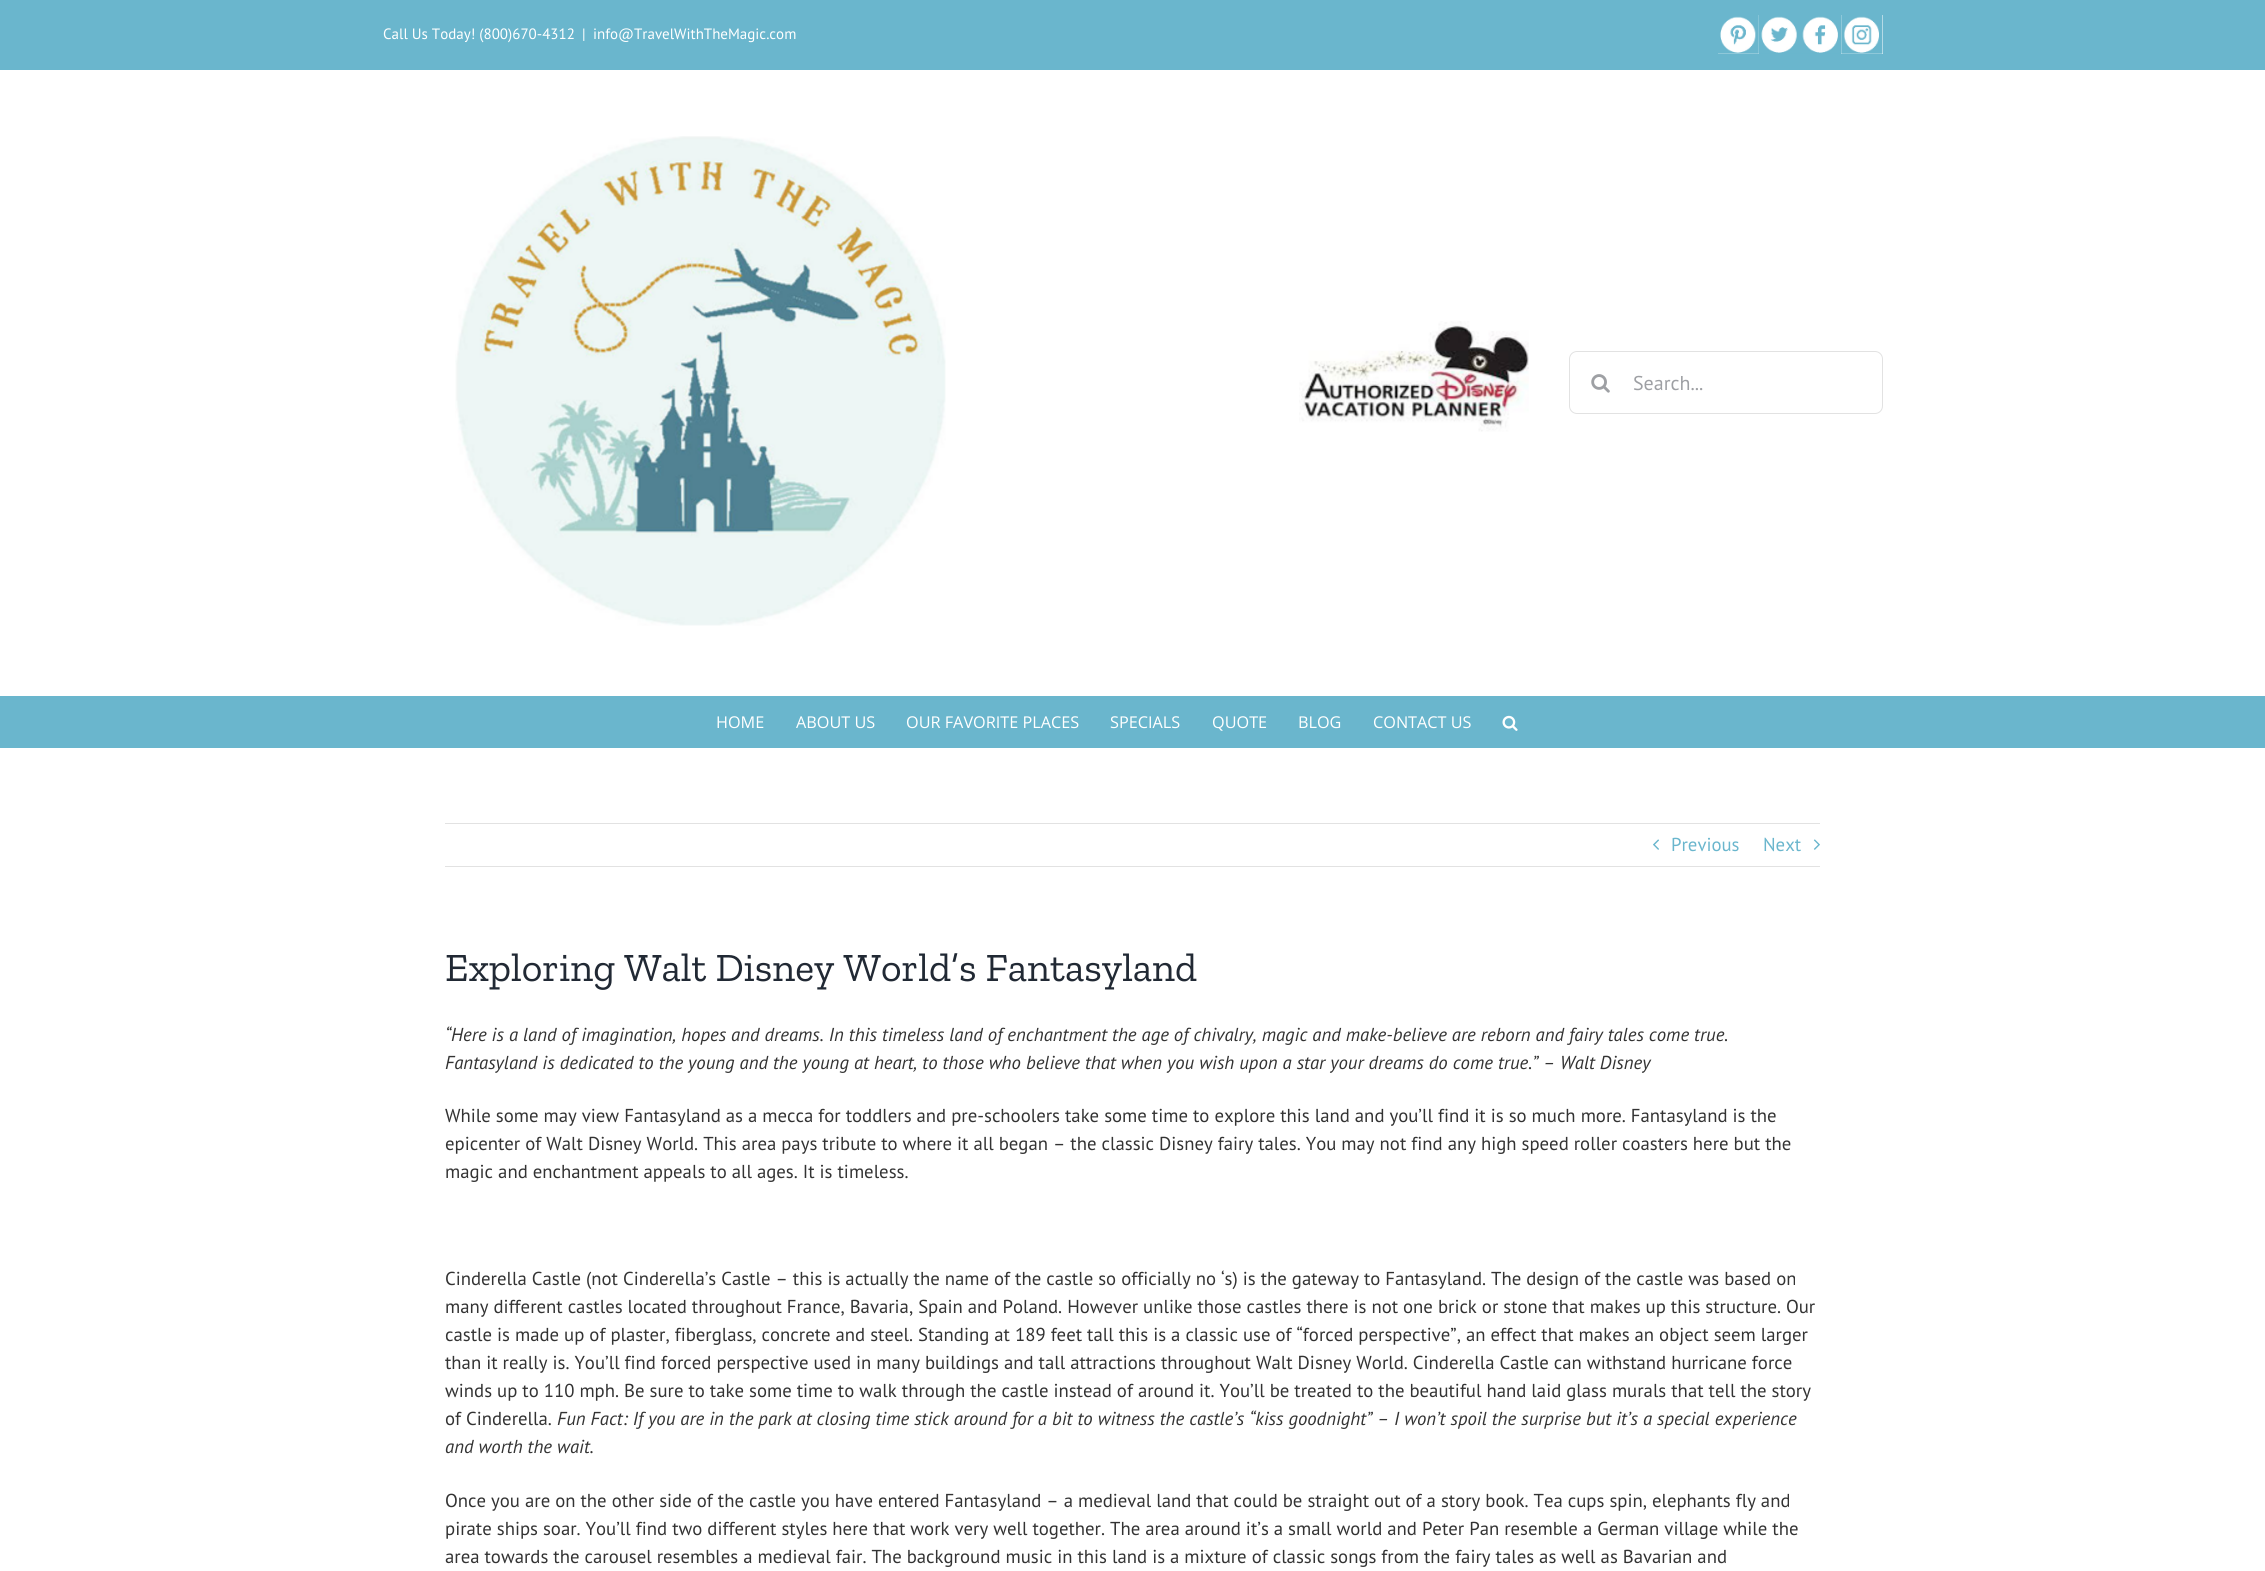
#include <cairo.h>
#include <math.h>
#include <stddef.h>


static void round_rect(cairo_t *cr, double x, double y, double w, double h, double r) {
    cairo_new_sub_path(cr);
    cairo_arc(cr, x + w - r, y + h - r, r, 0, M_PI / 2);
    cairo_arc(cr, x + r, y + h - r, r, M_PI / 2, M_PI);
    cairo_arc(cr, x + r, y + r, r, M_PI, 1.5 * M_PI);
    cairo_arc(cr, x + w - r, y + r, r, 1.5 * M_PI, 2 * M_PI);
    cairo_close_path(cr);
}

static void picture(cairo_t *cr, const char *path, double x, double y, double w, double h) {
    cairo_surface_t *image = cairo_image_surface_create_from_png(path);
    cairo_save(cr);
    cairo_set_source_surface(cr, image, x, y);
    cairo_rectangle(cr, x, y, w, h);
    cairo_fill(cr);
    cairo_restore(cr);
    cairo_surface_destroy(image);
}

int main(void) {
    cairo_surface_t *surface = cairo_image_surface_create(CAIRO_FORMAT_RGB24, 2265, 1571);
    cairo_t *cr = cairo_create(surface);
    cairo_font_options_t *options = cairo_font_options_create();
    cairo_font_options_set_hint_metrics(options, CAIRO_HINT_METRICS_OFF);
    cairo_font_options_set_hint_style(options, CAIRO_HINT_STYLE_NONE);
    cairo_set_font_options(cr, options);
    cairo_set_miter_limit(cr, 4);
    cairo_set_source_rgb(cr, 1, 1, 1);
    cairo_paint(cr);
    cairo_set_source_rgb(cr, 0.416, 0.714, 0.804);
    cairo_rectangle(cr, 0, 0, 2265, 70);
    cairo_fill(cr);
    cairo_select_font_face(cr, "PT Sans", CAIRO_FONT_SLANT_NORMAL, CAIRO_FONT_WEIGHT_NORMAL);
    cairo_set_font_size(cr, 15);
    cairo_set_source_rgb(cr, 1, 1, 1);
    cairo_move_to(cr, 383, 39);
    cairo_show_text(cr, "Call Us Today! (800)670-4312");
    cairo_move_to(cr, 582, 39);
    cairo_show_text(cr, "|");
    cairo_move_to(cr, 593, 39);
    cairo_show_text(cr, "info@TravelWithTheMagic.com");
    cairo_rectangle(cr, 1718, 15, 41, 39);
    cairo_fill(cr);
    picture(cr, "img1.png", 1718, 15, 41, 39);
    picture(cr, "img2.png", 1758, 15, 42, 39);
    picture(cr, "img3.png", 1800, 15, 41, 39);
    cairo_rectangle(cr, 1841, 15, 42, 39);
    cairo_fill(cr);
    picture(cr, "img4.png", 1841, 15, 42, 39);
    picture(cr, "img5.png", 455, 136, 491, 490);
    picture(cr, "img6.png", 1299, 321, 230, 111);
    round_rect(cr, 1569.5, 351.5, 313, 62, 7.5);
    cairo_set_source_rgb(cr, 0.886, 0.886, 0.886);
    cairo_set_line_width(cr, 1);
    cairo_stroke(cr);
    picture(cr, "img7.png", 1591, 374, 19, 19);
    cairo_set_font_size(cr, 20);
    cairo_set_source_rgb(cr, 0.62, 0.627, 0.643);
    cairo_move_to(cr, 1633, 390);
    cairo_show_text(cr, "Search...");
    cairo_set_source_rgb(cr, 0.416, 0.714, 0.804);
    cairo_rectangle(cr, 0, 696, 2265, 52);
    cairo_fill(cr);
    cairo_select_font_face(cr, "Open Sans", CAIRO_FONT_SLANT_NORMAL, CAIRO_FONT_WEIGHT_NORMAL);
    cairo_set_font_size(cr, 16.25);
    cairo_set_source_rgb(cr, 1, 1, 1);
    cairo_move_to(cr, 716, 728);
    cairo_show_text(cr, "HOME");
    cairo_move_to(cr, 796, 728);
    cairo_show_text(cr, "ABOUT US");
    cairo_move_to(cr, 906, 728);
    cairo_show_text(cr, "OUR FAVORITE PLACES");
    cairo_move_to(cr, 1110, 728);
    cairo_show_text(cr, "SPECIALS");
    cairo_move_to(cr, 1212, 728);
    cairo_show_text(cr, "QUOTE");
    cairo_move_to(cr, 1298, 728);
    cairo_show_text(cr, "BLOG");
    cairo_move_to(cr, 1373, 728);
    cairo_show_text(cr, "CONTACT US");
    picture(cr, "img8.png", 1502, 715, 16, 16);
    cairo_set_source_rgb(cr, 0.886, 0.886, 0.886);
    cairo_rectangle(cr, 445, 823, 1375, 1);
    cairo_fill(cr);
    cairo_rectangle(cr, 445, 866, 1375, 1);
    cairo_fill(cr);
    picture(cr, "img9.png", 1653, 839, 6, 11);
    cairo_select_font_face(cr, "PT Sans", CAIRO_FONT_SLANT_NORMAL, CAIRO_FONT_WEIGHT_NORMAL);
    cairo_set_font_size(cr, 18.75);
    cairo_set_source_rgb(cr, 0.416, 0.714, 0.804);
    cairo_move_to(cr, 1671, 851);
    cairo_show_text(cr, "Previous");
    cairo_move_to(cr, 1763, 851);
    cairo_show_text(cr, "Next");
    picture(cr, "img10.png", 1813, 839, 7, 11);
    cairo_select_font_face(cr, "Zilla Slab", CAIRO_FONT_SLANT_NORMAL, CAIRO_FONT_WEIGHT_NORMAL);
    cairo_set_font_size(cr, 40);
    cairo_set_source_rgb(cr, 0.129, 0.161, 0.204);
    cairo_move_to(cr, 445, 981);
    cairo_show_text(cr, "Exploring Walt Disney World’s Fantasyland");
    cairo_select_font_face(cr, "PT Sans", CAIRO_FONT_SLANT_ITALIC, CAIRO_FONT_WEIGHT_NORMAL);
    cairo_set_font_size(cr, 18.75);
    cairo_set_source_rgb(cr, 0.2, 0.2, 0.2);
    cairo_move_to(cr, 445, 1041);
    cairo_show_text(cr, "“Here is a land of imagination, hopes and dreams. In this timeless land of enchantment the age of chivalry, magic and make-believe are reborn and fairy tales come true.");
    cairo_move_to(cr, 445, 1069);
    cairo_show_text(cr, "Fantasyland is dedicated to the young and the young at heart, to those who believe that when you wish upon a star your dreams do come true.” – Walt Disney");
    cairo_select_font_face(cr, "PT Sans", CAIRO_FONT_SLANT_NORMAL, CAIRO_FONT_WEIGHT_NORMAL);
    cairo_move_to(cr, 445, 1122);
    cairo_show_text(cr, "While some may view Fantasyland as a mecca for toddlers and pre-schoolers take some time to explore this land and you’ll find it is so much more. Fantasyland is the");
    cairo_move_to(cr, 445, 1150);
    cairo_show_text(cr, "epicenter of Walt Disney World. This area pays tribute to where it all began – the classic Disney fairy tales. You may not find any high speed roller coasters here but the");
    cairo_move_to(cr, 445, 1178);
    cairo_show_text(cr, "magic and enchantment appeals to all ages. It is timeless.");
    cairo_move_to(cr, 445, 1285);
    cairo_show_text(cr, "Cinderella Castle (not Cinderella’s Castle – this is actually the name of the castle so officially no ‘s) is the gateway to Fantasyland. The design of the castle was based on");
    cairo_move_to(cr, 445, 1313);
    cairo_show_text(cr, "many different castles located throughout France, Bavaria, Spain and Poland. However unlike those castles there is not one brick or stone that makes up this structure. Our");
    cairo_move_to(cr, 445, 1341);
    cairo_show_text(cr, "castle is made up of plaster, fiberglass, concrete and steel. Standing at 189 feet tall this is a classic use of “forced perspective”, an effect that makes an object seem larger");
    cairo_move_to(cr, 445, 1369);
    cairo_show_text(cr, "than it really is. You’ll find forced perspective used in many buildings and tall attractions throughout Walt Disney World. Cinderella Castle can withstand hurricane force");
    cairo_move_to(cr, 445, 1397);
    cairo_show_text(cr, "winds up to 110 mph. Be sure to take some time to walk through the castle instead of around it. You’ll be treated to the beautiful hand laid glass murals that tell the story");
    cairo_move_to(cr, 445, 1425);
    cairo_show_text(cr, "of Cinderella.");
    cairo_select_font_face(cr, "PT Sans", CAIRO_FONT_SLANT_ITALIC, CAIRO_FONT_WEIGHT_NORMAL);
    cairo_move_to(cr, 557, 1425);
    cairo_show_text(cr, "Fun Fact: If you are in the park at closing time stick around for a bit to witness the castle’s “kiss goodnight” – I won’t spoil the surprise but it’s a special experience");
    cairo_move_to(cr, 445, 1453);
    cairo_show_text(cr, "and worth the wait.");
    cairo_select_font_face(cr, "PT Sans", CAIRO_FONT_SLANT_NORMAL, CAIRO_FONT_WEIGHT_NORMAL);
    cairo_move_to(cr, 445, 1507);
    cairo_show_text(cr, "Once you are on the other side of the castle you have entered Fantasyland – a medieval land that could be straight out of a story book. Tea cups spin, elephants fly and");
    cairo_move_to(cr, 445, 1535);
    cairo_show_text(cr, "pirate ships soar. You’ll find two different styles here that work very well together. The area around it’s a small world and Peter Pan resemble a German village while the");
    cairo_move_to(cr, 445, 1563);
    cairo_show_text(cr, "area towards the carousel resembles a medieval fair. The background music in this land is a mixture of classic songs from the fairy tales as well as Bavarian and");
    cairo_surface_write_to_png(surface, "page.png");
    cairo_font_options_destroy(options);
    cairo_destroy(cr);
    cairo_surface_destroy(surface);
    return 0;
}
